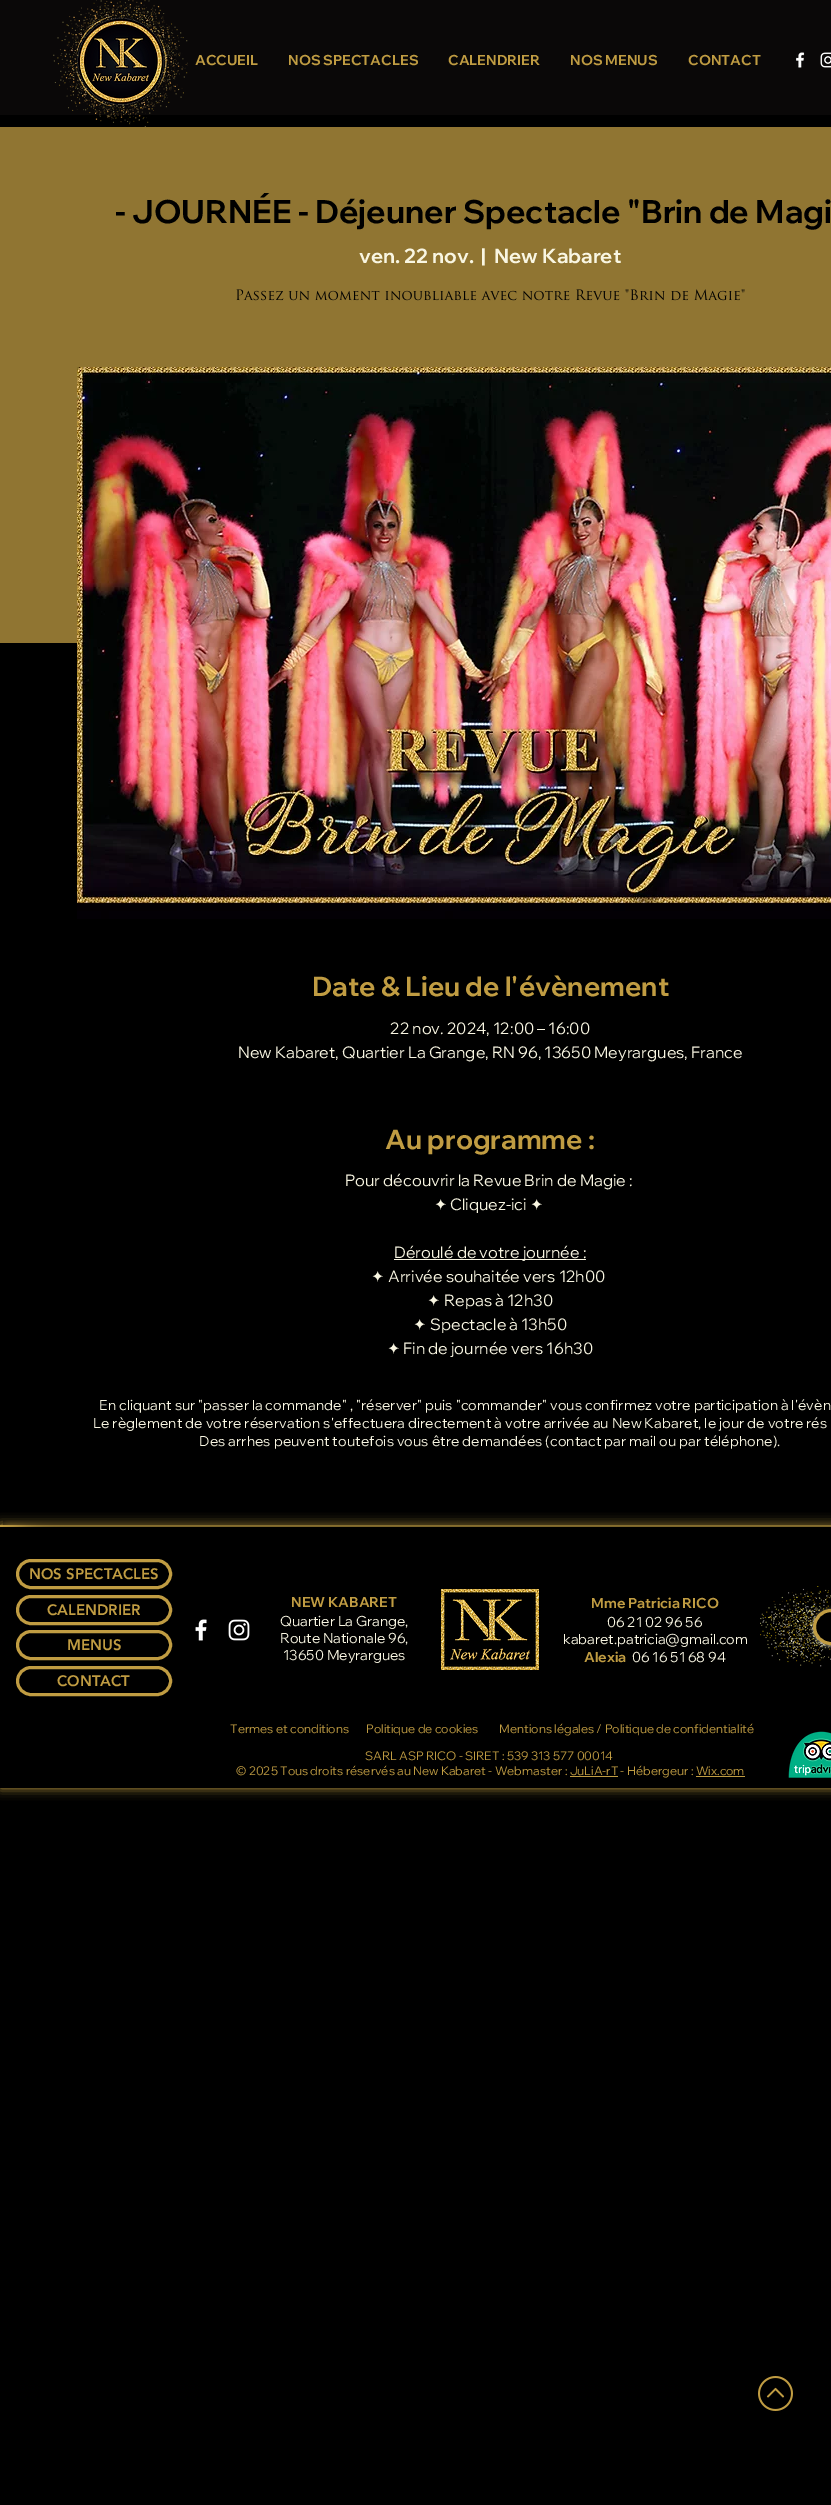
%!PS
<< /PageSize [831 2505] /PageUsesTransparency true >> setpagedevice
/m/moveto load def
/l/rlineto load def
/z/closepath load def
/f/fill load def
/s/stroke load def
/q/gsave load def
/Q_/grestore load def
/w/setlinewidth load def
/C { dup -16 bitshift 255 div exch dup -8 bitshift 255 and 255 div exch 255 and 255 div setrgbcolor } def
/F { [ exch dup neg 0 0 3 -1 roll 0 0 ] selectfont } def
/T { moveto show } def
/R { rectfill } def
/A { dup .setfillconstantalpha .setstrokeconstantalpha } def
/Q { 5 dict begin { /r /h /w /y /x } { exch def } forall
  x r add y moveto x w add y 2 copy h add r arct x w add y h add x 1 index r arct
  x y h add x y r arct x y 2 copy exch w add exch r arct closepath end } def
/S { 12 dict begin { /a /b /q /h /w /y /x } { exch def } forall gsave /was 0 def
  9 -2 -9 { dup b mul 4 div /e exch def 1 sub .425 mul 2.718 exch exp 1 add a .99 .min exch div /now exch def
    1 1 now sub 1 was sub div sub A /was now def
    w h .min e 2 mul add 0 gt { x e sub y e sub w e 2 mul add h e 2 mul add
      q e add b .6 mul add w h .min 2 div e add .min 0 .max Q fill } if } for grestore end } def
/I { 5 dict begin { /h /w /y /x /name } { exch def } forall
  gsave x y translate w h scale
  w h 8 [w 0 0 h 0 0] name (r) file false 3 colorimage grestore end } def
0 .pushpdf14devicefilter
0 2505 translate 1 -1 scale
4 setmiterlimit
16#000000 C
0 0 831 2505 R
16#0A0808 C
0 0 831 115 R
(1.rgb) 53 0 135 127 I
/WixMadeforDisplay-Bold 14 F
16#C09C42 C
(ACCUEIL) 195 65 T
(NOS SPECTACLES) 288 65 T
(CALENDRIER) 448 65 T
(NOS MENUS) 570 65 T
(CONTACT) 688 65 T
(2.rgb) 796 52 9 16 I
(3.rgb) 820 52 11 16 I
16#907532 C
0 127 831 516 R
/WixMadeforDisplay-Bold 32 F
16#000000 C
(- JOURNÉE - Déjeuner Spectacle "Brin de Magi) 115 223 T
/WixMadeforDisplay-Bold 20 F
16#F9F6E2 C
(ven. 22 nov.) 359 263 T
(|) 481 263 T
(New Kabaret) 494 263 T
(4.rgb) 236 289 509 12 I
(5.rgb) 77 367 754 552 I
/WixMadeforDisplay-Bold 27 F
16#C09C42 C
(Date & Lieu de l'évènement) 312 996 T
/WixMadeforDisplay-Regular 16 F
16#F9F6E2 C
(22 nov. 2024, 12:00 – 16:00) 390 1034 T
(New Kabaret, Quartier La Grange, RN 96, 13650 Meyrargues, France) 238 1058 T
/WixMadeforDisplay-Bold 27 F
16#C09C42 C
(Au programme :) 385 1149 T
/WixMadeforDisplay-Regular 16 F
16#F9F6E2 C
(Pour découvrir la Revue Brin de Magie :) 345 1186 T
/DejaVuSans-Regular 16 F
(✦) 434 1210 T
/WixMadeforDisplay-Regular 16 F
(Cliquez-ici) 450 1210 T
/DejaVuSans-Regular 16 F
(✦) 530 1210 T
394 1259 192 1 R
/WixMadeforDisplay-Regular 16 F
(Déroulé de votre journée :) 394 1258 T
/DejaVuSans-Regular 16 F
(✦) 371 1282 T
/WixMadeforDisplay-Regular 16 F
(Arrivée souhaitée vers 12h00) 388 1282 T
/DejaVuSans-Regular 16 F
(✦) 427 1306 T
/WixMadeforDisplay-Regular 16 F
(Repas à 12h30) 444 1306 T
/DejaVuSans-Regular 16 F
(✦) 413 1330 T
/WixMadeforDisplay-Regular 16 F
(Spectacle à 13h50) 430 1330 T
/DejaVuSans-Regular 16 F
(✦) 387 1354 T
/WixMadeforDisplay-Regular 16 F
(Fin de journée vers 16h30) 403 1354 T
/WixMadeforDisplay-Regular 14 F
99 1410 m .14 0 (En cliquant sur "passer la commande" , "réserver" puis "commander" vous confirmez votre participation à l'évèn) ashow
93 1428 m .14 0 (Le règlement de votre réservation s'effectuera directement à votre arrivée au New Kabaret, le jour de votre rés) ashow
199 1446 m .14 0 (Des arrhes peuvent toutefois vous être demandées \(contact par mail ou par téléphone\).) ashow
q
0 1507 m 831 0 l 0 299 l -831 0 l z 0 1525 m 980 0 l 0 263 l -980 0 l z eoclip newpath
16#C09C42 C
0 1525 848 263 0 5.5 1 S
Q_
16#C09C42 C
0 1525 831 2 R
(6.rgb) 3 1520 97 7 I
(7.rgb) 100 1520 731 7 I
3 w
17.5 1560.5 153 27 13.5 Q s
/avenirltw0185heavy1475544-Black 15 F
(NOS SPECTACLES) 29 1579 T
17.5 1596.5 153 27 13.5 Q s
(CALENDRIER) 47 1615 T
/WixMadeforDisplay-Bold 14 F
(NEW KABARET) 291 1607 T
/WixMadeforDisplay-Regular 14 F
16#F9F6E2 C
(Quartier La Grange,) 280 1626 T
(Route Nationale 96,) 280 1643 T
(13650 Meyrargues) 283 1660 T
(8.rgb) 441 1589 98 81 I
/WixMadeforDisplay-Bold 14 F
16#C09C42 C
(Mme Patricia RICO) 591 1608 T
/WixMadeforDisplay-Regular 14 F
16#F9F6E2 C
(06 21 02 96 56) 607 1627 T
(kabaret.patricia@gmail.com) 563 1644 T
/WixMadeforDisplay-Bold 14 F
16#C09C42 C
(Alexia) 584 1662 T
/WixMadeforDisplay-Regular 14 F
16#F9F6E2 C
(06 16 51 68 94) 632 1662 T
(9.rgb) 760 1586 71 81 I
813 1610 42 36 18 2 .6 S
16#000000 C
814.5 1610.5 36 33 16.5 Q q f Q_
16#C09C42 C
s
(10.rgb) 195 1619 12 22 I
(11.rgb) 228 1619 22 22 I
17.5 1631.5 153 27 13.5 Q s
/avenirltw0185heavy1475544-Black 15 F
(MENUS) 67 1650 T
17.5 1667.5 153 27 13.5 Q s
(CONTACT) 57 1686 T
/WixMadeforDisplay-Regular 12 F
(Termes et conditions) 230 1733 T
(Politique de cookies) 366 1733 T
(Mentions légales / Politique de confidentialité) 499 1733 T
(12.rgb) 788 1731 43 47 I
(SARL ASP RICO - SIRET : 539 313 577 00014) 365 1760 T
(© 2025 Tous droits réservés au New Kabaret - Webmaster : JuLiA-rT - Hébergeur : Wix.com) 236 1775 T
570 1776 48 1 R
696 1776 49 1 R
(13.rgb) 758 2376 35 35 I
.poppdf14devicefilter showpage
